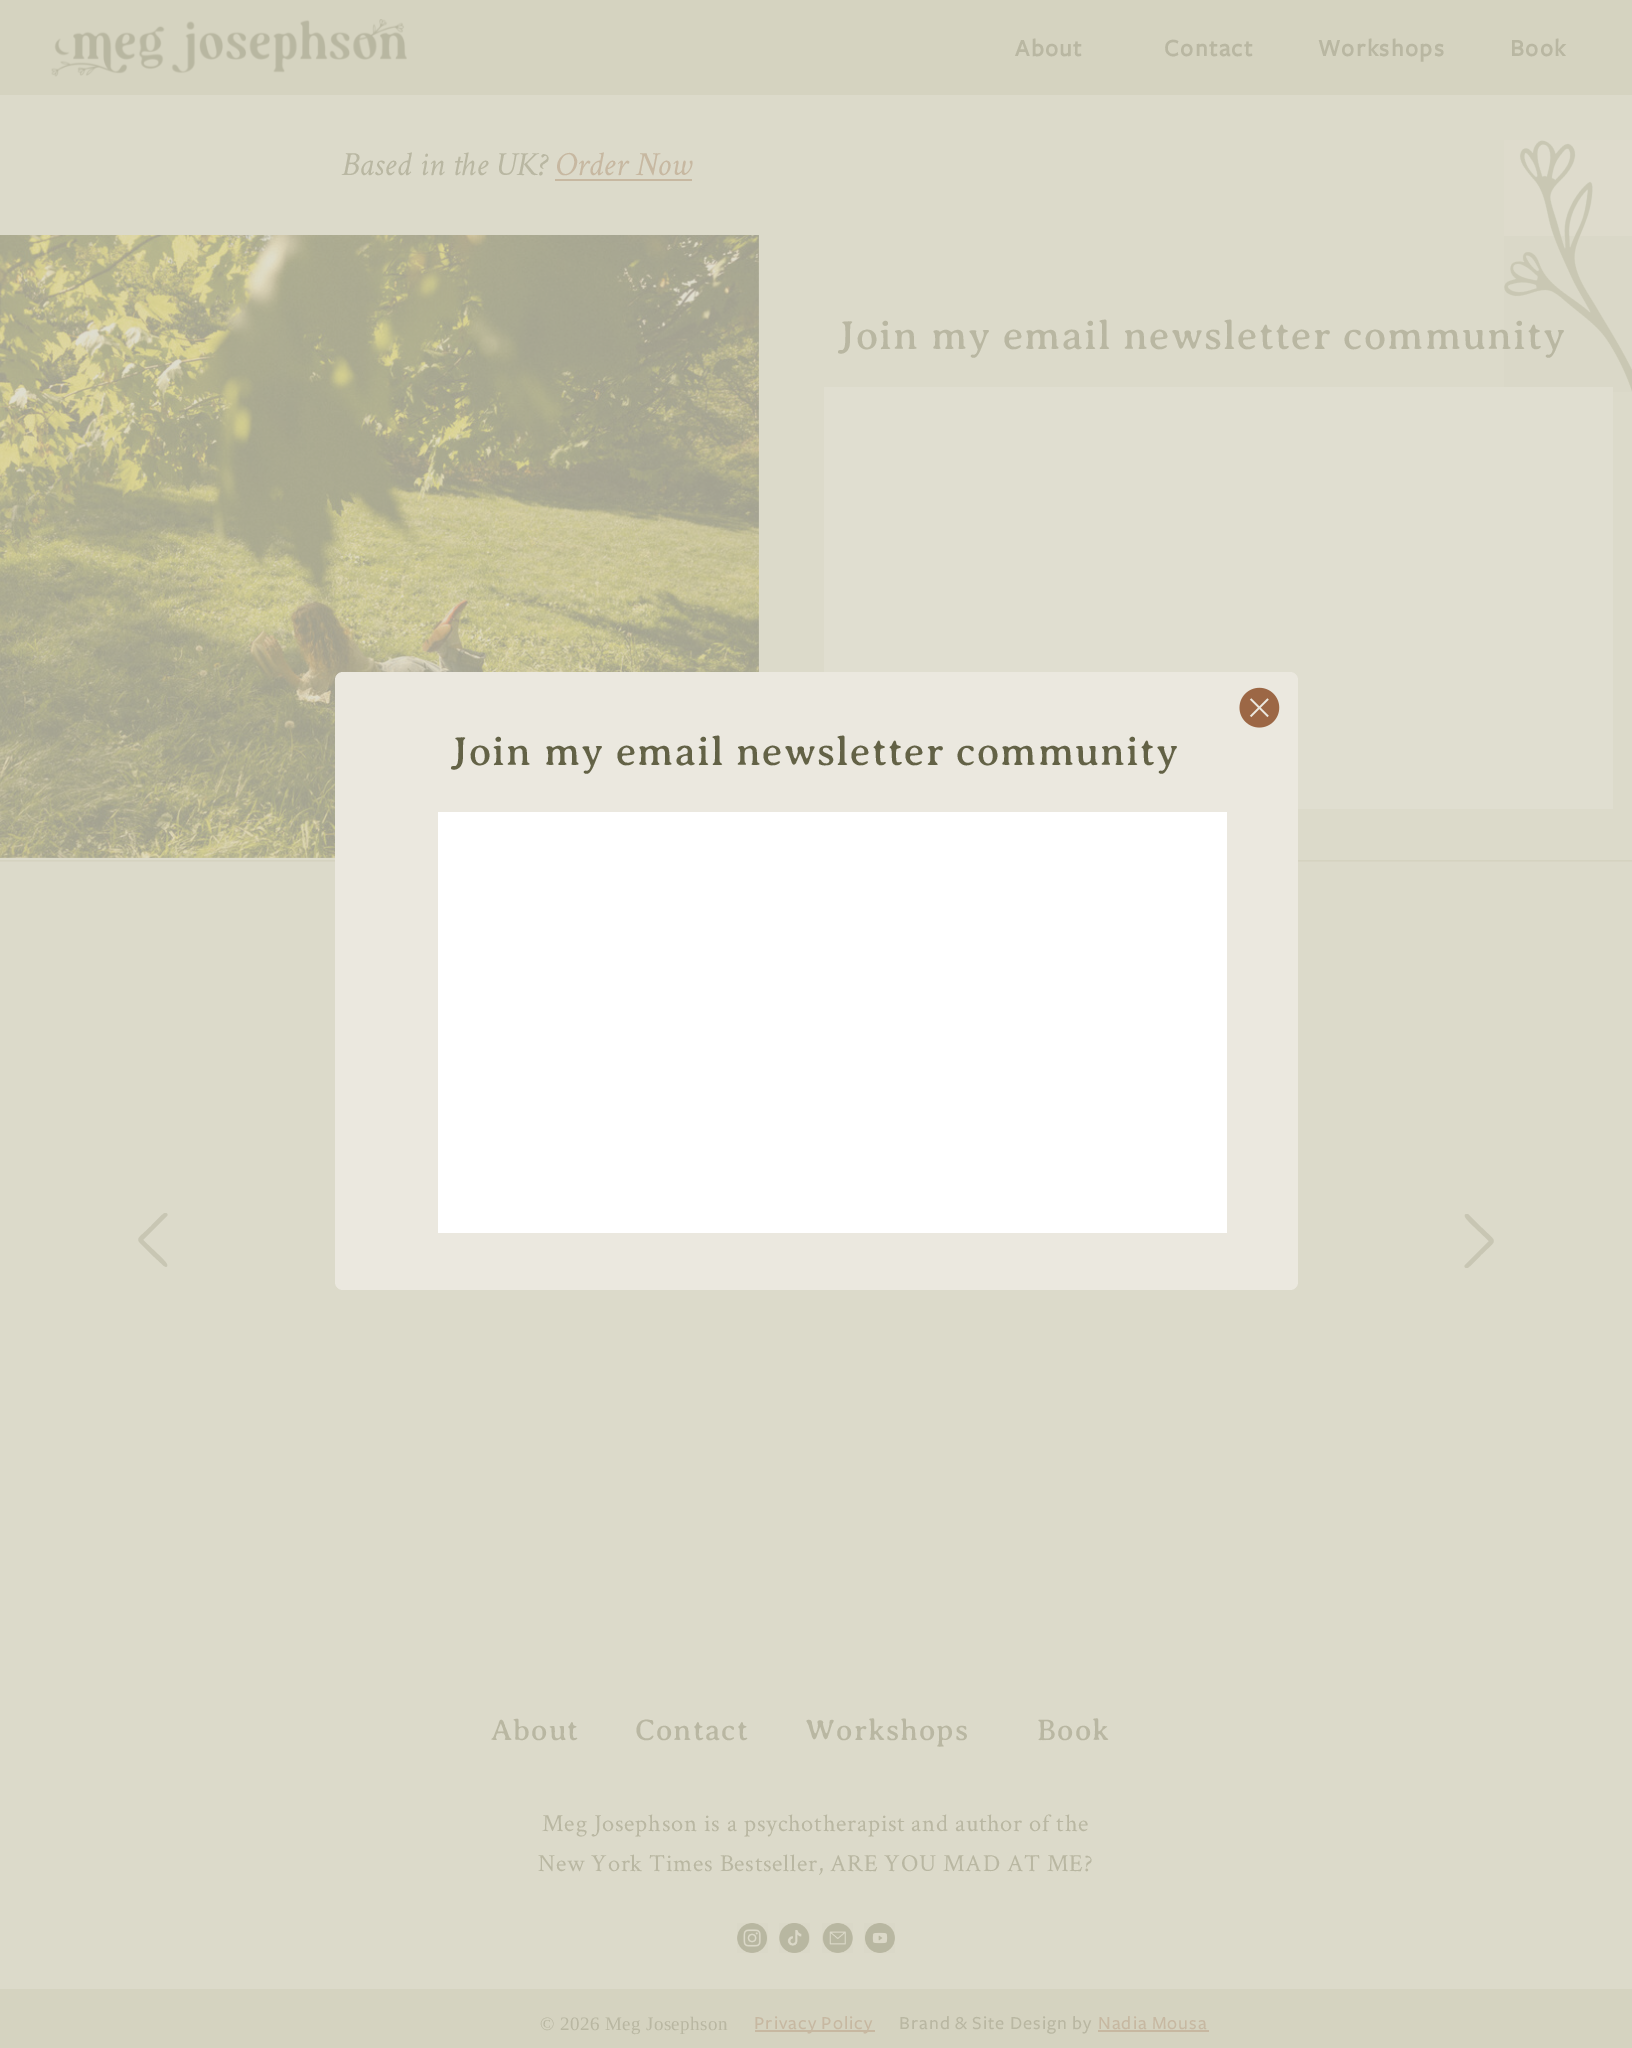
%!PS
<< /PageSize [1632 2048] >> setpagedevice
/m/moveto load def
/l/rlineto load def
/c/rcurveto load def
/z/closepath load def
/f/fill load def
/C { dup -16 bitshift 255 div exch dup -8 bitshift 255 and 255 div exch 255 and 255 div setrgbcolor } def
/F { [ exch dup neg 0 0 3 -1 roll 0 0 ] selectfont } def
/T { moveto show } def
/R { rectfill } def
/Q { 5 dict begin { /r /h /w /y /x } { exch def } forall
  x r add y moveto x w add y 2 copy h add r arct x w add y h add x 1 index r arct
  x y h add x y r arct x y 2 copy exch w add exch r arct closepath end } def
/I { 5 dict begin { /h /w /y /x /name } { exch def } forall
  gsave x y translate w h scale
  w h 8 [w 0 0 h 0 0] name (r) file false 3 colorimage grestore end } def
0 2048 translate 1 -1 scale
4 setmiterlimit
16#DCDACA C
0 0 1632 2048 R
16#D5D3C0 C
0 0 1632 95 R
(1.rgb) 51 19 356 58 I
/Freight-Bold 24.5 F
16#B9B7A2 C
1015 56 m 1.5 0 (About) ashow
1164 56 m 1.5 0 (Contact) ashow
1318 56 m 1.5 0 (Workshops) ashow
1510 56 m 1.5 0 (Book) ashow
/CrimsonText-Italic 34 F
(Based in the UK?) 341 175 T
16#C7B8A1 C
(Order Now) 555 175 T
555 179 137 2 R
(2.rgb) 0 235 759 623 I
(3.rgb) 1504 140 128 252 I
/AveriaSerifLibre-Regular 40.75 F
16#B9B7A2 C
838 349 m 1.2 0 (Join my email newsletter community) ashow
16#E0DED0 C
824 387 789 422 R
16#D5D3C0 C
0 860 1632 1 R
16#D8D5C4 C
0 861 1632 1 R
16#EBE8DF C
335 672 963 618 8 Q f
(4.rgb) 1239 687 41 41 I
16#636246 C
451 765 m 1.2 0 (Join my email newsletter community) ashow
16#FFFFFF C
438 812 789 421 R
16#C8C6B3 C
165 1213 m 2 0 3 1 2 3 c -24 24 l 20 19 l 0 1 7 6 3 8 c -2 -1 l -13 -12 l -17 -18 -17 -11 0 -28 c 2 -2 12 -13 14 -13 c z f
1467 1268 m -2 0 -3 -1 -2 -3 c 24 -24 l -20 -19 l 0 -1 -7 -6 -3 -8 c 2 0 l 13 13 l 17 17 17 11 0 28 c -2 2 -12 13 -14 13 c z f
/AveriaSerifLibre-Regular 30 F
16#B9B7A2 C
491 1740 m 1 0 (About) ashow
635 1740 m 1 0 (Contact) ashow
805 1740 m 1 0 (Workshops) ashow
1037 1740 m 1 0 (Book) ashow
/CrimsonText-Regular 24.5 F
542 1831 m .73 0 (Meg Josephson is a psychotherapist and author of the) ashow
538 1871 m .73 0 (New York Times Bestseller, ARE YOU MAD AT ME?) ashow
(5.rgb) 737 1923 31 30 I
(6.rgb) 779 1923 31 30 I
(7.rgb) 822 1923 31 30 I
(8.rgb) 864 1923 31 30 I
16#D5D3C0 C
0 1989 1632 59 R
/LiberationSerif-Regular 19 F
16#B9B7A2 C
540 2030 m .4 0 (© 2026 Meg Josephson) ashow
16#C7B8A1 C
755 2030 120 2 R
/Freight-Medium 19 F
754 2029 m 1.1 0 (Privacy Policy) ashow
16#B9B7A2 C
899 2029 m 1.1 0 (Brand & Site Design by) ashow
16#C7B8A1 C
1098 2029 m 1.1 0 (Nadia Mousa) ashow
1098 2030 111 2 R
showpage
